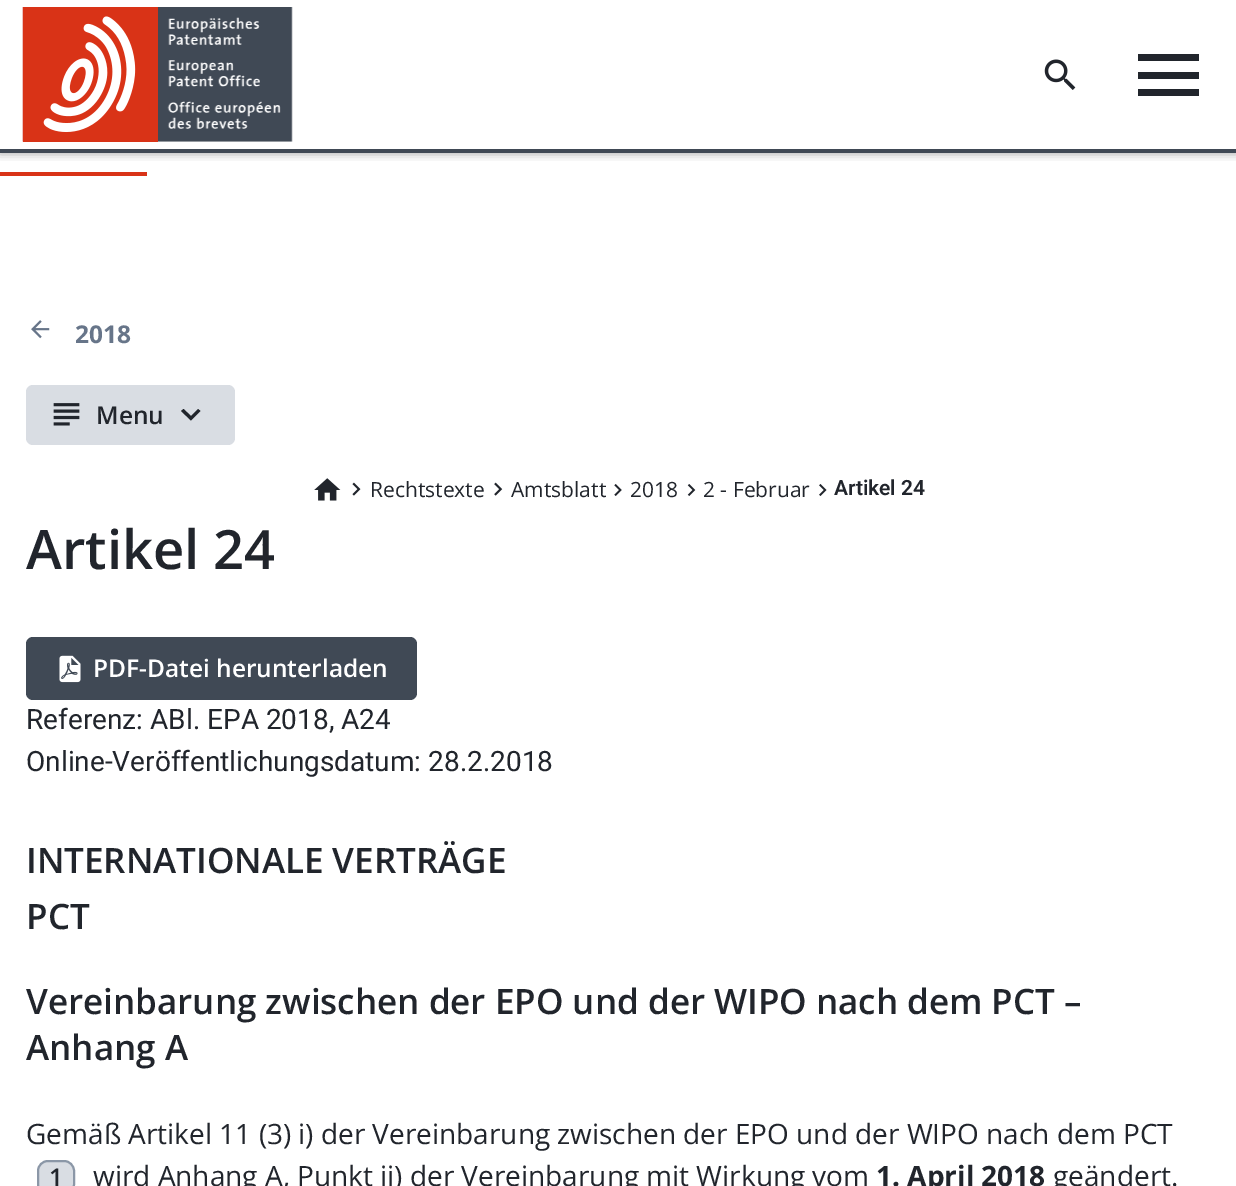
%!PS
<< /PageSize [1236 1186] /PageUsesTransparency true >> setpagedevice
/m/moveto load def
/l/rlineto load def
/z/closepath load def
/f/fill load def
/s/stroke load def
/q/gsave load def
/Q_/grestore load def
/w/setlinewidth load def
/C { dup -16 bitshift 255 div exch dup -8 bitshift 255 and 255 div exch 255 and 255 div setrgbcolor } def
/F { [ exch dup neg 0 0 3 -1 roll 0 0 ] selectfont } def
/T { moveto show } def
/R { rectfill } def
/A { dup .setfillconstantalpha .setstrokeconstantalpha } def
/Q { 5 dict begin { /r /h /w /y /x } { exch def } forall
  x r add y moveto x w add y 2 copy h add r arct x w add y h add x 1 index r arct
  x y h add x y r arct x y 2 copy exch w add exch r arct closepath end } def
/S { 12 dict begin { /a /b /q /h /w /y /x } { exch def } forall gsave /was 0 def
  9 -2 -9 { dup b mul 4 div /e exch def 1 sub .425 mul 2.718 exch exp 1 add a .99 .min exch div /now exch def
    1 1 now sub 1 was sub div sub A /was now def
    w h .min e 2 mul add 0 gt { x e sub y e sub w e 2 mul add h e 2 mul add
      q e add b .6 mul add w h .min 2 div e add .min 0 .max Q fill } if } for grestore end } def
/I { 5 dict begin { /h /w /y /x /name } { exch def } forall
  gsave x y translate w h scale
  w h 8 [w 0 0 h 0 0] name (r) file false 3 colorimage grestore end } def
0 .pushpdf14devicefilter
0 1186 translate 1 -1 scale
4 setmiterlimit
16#FFFFFF C
0 0 1236 1186 R
q
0 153 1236 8 rectclip
16#000000 C
0 0 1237 152 0 5 .5 S
Q_
16#404955 C
0 149 1236 4 R
(1.rgb) 22 7 271 135 I
(2.rgb) 23 7 135 135 I
16#D93317 C
0 172 147 4 R
(3.rgb) 1044 59 32 31 I
16#21252C C
1138 54 61 7 R
1138 72 61 7 R
1138 89 61 7 R
(4.rgb) 31 320 19 19 I
/OpenSans-Bold 24.5 F
16#677589 C
(2018) 75 343 T
16#D9DDE3 C
26 385 209 60 7 Q f
(5.rgb) 53 403 27 23 I
/OpenSans-SemiBold 24.5 F
16#21252C C
(Menu) 96 424 T
183.5 409 m 7.5 7 l 7 -7 l 2.5 2 l -9.5 9.5 l -10 -9.5 l z f
(6.rgb) 314 478 27 23 I
(7.rgb) 352 482 9 14 I
/OpenSans-Regular 21 F
(Rechtstexte) 370 497 T
(8.rgb) 494 482 9 14 I
(Amtsblatt) 511 497 T
(9.rgb) 614 484 8 12 I
(2018) 630 497 T
(10.rgb) 687 484 9 12 I
(2 - Februar) 703 497 T
(11.rgb) 819 484 8 12 I
/Roboto-SemiBold 21 F
(Artikel 24) 834 495 T
/OpenSans-SemiBold 54.25 F
(Artikel 24) 26 569 T
16#404955 C
26 637 391 63 7 Q f
(12.rgb) 59 655 22 28 I
/OpenSans-SemiBold 24.5 F
16#FFFFFF C
(PDF-Datei herunterladen) 93 677 T
/Roboto-Regular 28 F
16#21252C C
(Referenz: ABl. EPA 2018, A24) 26 729 T
(Online-Veröffentlichungsdatum: 28.2.2018) 26 771 T
/OpenSans-SemiBold 35 F
(INTERNATIONALE VERTRÄGE) 26 873 T
(PCT) 26 929 T
(Vereinbarung zwischen der EPO und der WIPO nach dem PCT –) 26 1014 T
(Anhang A) 26 1060 T
/OpenSans-Regular 28 F
(Gemäß Artikel 11 \(3\) i\) der Vereinbarung zwischen der EPO und der WIPO nach dem PCT) 26 1144 T
16#D9DDE3 C
38 1161 36 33 10 Q q f Q_
16#8B97A7 C
2 w
s
/OpenSans-SemiBold 24.5 F
16#21252C C
(1) 49 1186 T
/OpenSans-Regular 28 F
(wird Anhang A, Punkt ii\) der Vereinbarung mit Wirkung vom) 93 1186 T
/OpenSans-Bold 28 F
(1. April 2018) 876 1186 T
/OpenSans-Regular 28 F
(geändert.) 1053 1186 T
.poppdf14devicefilter showpage
